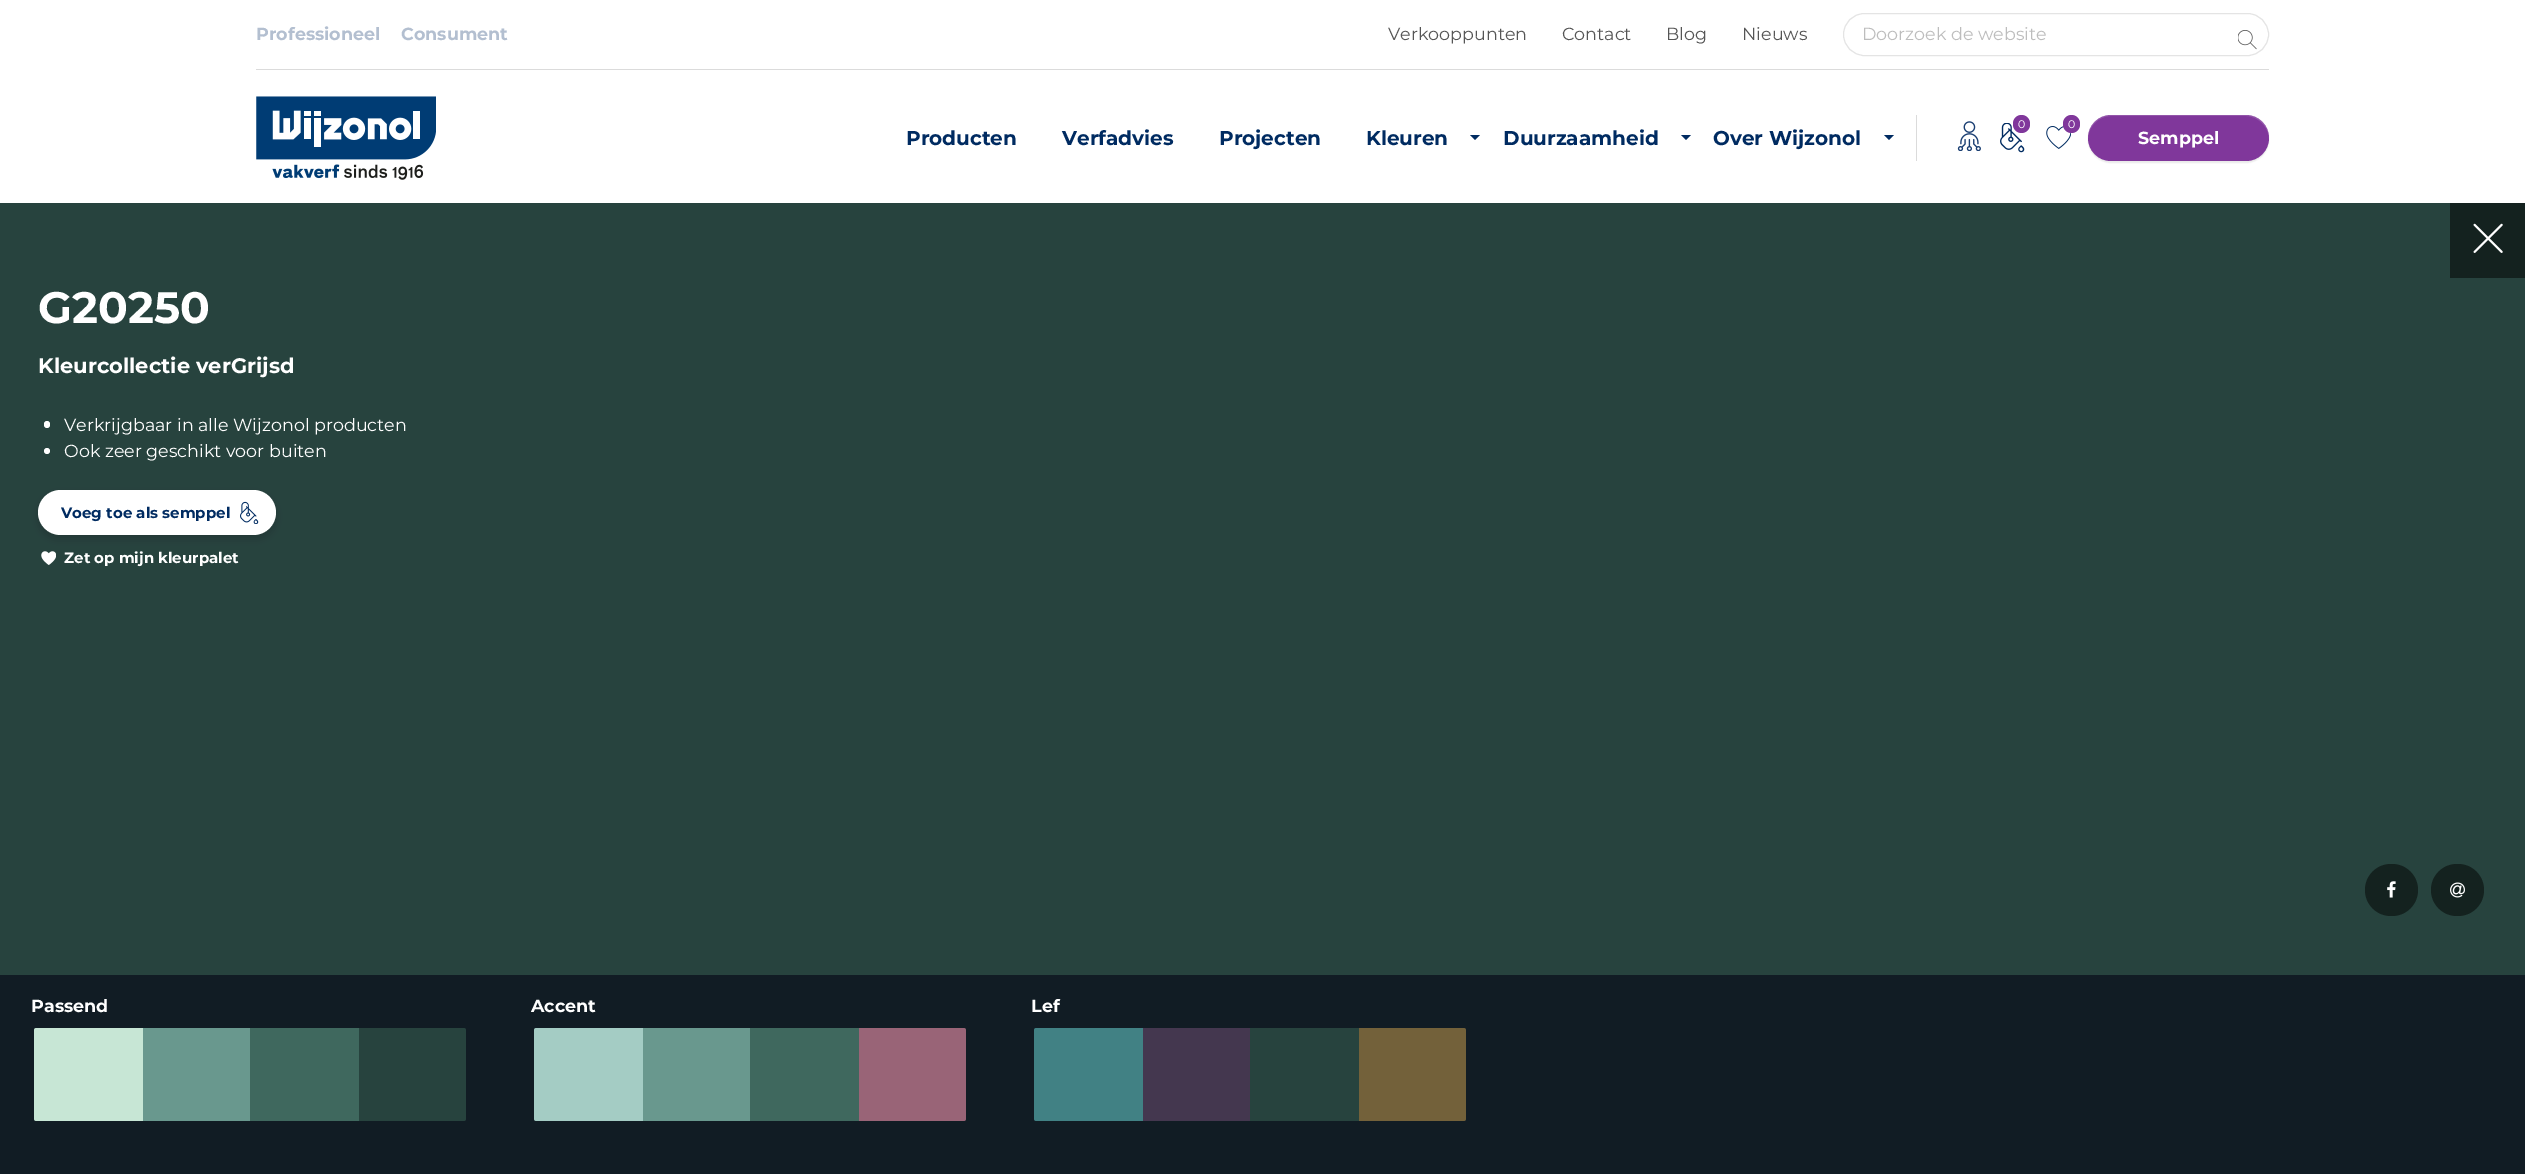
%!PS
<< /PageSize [2525 1174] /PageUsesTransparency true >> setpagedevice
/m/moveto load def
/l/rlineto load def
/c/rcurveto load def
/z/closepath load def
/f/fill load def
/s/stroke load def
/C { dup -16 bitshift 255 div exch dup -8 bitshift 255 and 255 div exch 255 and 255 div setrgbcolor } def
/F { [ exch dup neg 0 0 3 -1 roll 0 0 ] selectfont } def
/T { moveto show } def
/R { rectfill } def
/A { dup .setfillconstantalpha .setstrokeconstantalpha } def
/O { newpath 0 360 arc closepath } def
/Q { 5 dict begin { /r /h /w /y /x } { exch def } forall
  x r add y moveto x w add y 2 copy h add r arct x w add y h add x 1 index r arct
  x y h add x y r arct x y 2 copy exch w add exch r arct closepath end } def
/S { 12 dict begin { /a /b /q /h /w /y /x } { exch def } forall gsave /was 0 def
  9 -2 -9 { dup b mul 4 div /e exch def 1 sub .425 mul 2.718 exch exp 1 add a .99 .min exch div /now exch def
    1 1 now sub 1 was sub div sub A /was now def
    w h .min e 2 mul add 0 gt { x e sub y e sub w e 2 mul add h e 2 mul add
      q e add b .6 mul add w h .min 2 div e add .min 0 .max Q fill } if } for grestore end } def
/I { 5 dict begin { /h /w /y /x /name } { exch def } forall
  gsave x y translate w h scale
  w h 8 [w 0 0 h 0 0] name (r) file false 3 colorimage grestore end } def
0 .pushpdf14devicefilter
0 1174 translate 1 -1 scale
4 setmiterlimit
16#FFFFFF C
0 0 2525 1174 R
16#DBDBDB C
256 69 2013 1 R
/Montserrat-Bold 17.5 F
16#B3BFD0 C
(Professioneel) 256 40 T
(Consument) 401 40 T
/Montserrat-Regular 17.5 F
16#555555 C
(Verkooppunten) 1388 40 T
(Contact) 1562 40 T
(Blog) 1666 40 T
(Nieuws) 1742 40 T
16#E4E4E4 C
1843.5 13.5 425 42 21 Q s
16#BDBDBD C
(Doorzoek de website) 1862 40 T
(1.rgb) 2238 30 19 20 I
(2.rgb) 256 96 180 84 I
/Montserrat-Bold 20 F
16#002B61 C
(Producten) 906 145 T
(Verfadvies) 1062 145 T
(Projecten) 1219 145 T
(Kleuren) 1366 145 T
1470 135 m 10 0 l -5 5 l z f
(Duurzaamheid) 1503 145 T
1681 135 m 10 0 l -5 5 l z f
(Over Wijzonol) 1713 145 T
1884 135 m 10 0 l -5 5 l z f
16#DBDBDB C
1916 115 1 46 R
(3.rgb) 1957 121 24 30 I
(4.rgb) 2000 123 25 30 I
16#80379B C
2013 115 17 18 8.5 Q f
/Montserrat-Regular 11 F
16#FFFFFF C
(0) 2018 128 T
(5.rgb) 2046 126 25 23 I
16#80379B C
2063 115 17 18 8.5 Q f
16#FFFFFF C
(0) 2068 128 T
16#000000 C
2088 116 181 47 23.5 .5 .07 S
16#80379B C
2088 115 181 46 23 Q f
0.15 A
16#FFFFFF C
2111 116 m 135 0 l 12 0 23 11 23 23 c 0 -1 l 0 -13 -10 -23 -23 -23 c -135 0 l -13 0 -23 10 -23 23 c 0 1 l 0 -12 10 -23 23 -23 c z f
/Montserrat-Bold 17.5 F
1 A
(Semppel) 2138 144 T
16#27433E C
0 203 2525 772 R
16#14221F C
2450 203 75 75 R
(6.rgb) 2473 223 30 30 I
/Montserrat-Bold 44 F
16#FFFFFF C
(G20250) 38 323 T
/Montserrat-Bold 21 F
(Kleurcollectie verGrijsd) 38 373 T
44 421 6 7 3 Q f
/Montserrat-Regular 17.5 F
(Verkrijgbaar in alle Wijzonol producten) 64 431 T
47 451 3 O f
(Ook zeer geschikt voor buiten) 64 457 T
16#000000 C
38 494 238 45 22.5 4 .16 S
16#FFFFFF C
38 490 238 45 22.5 Q f
/Montserrat-Bold 15 F
16#002B61 C
(Voeg toe als semppel) 61 518 T
(7.rgb) 240 501 19 23 I
(8.rgb) 41 551 15 14 I
16#FFFFFF C
(Zet op mijn kleurpalet) 64 563 T
16#14221F C
2365 864 53 52 26 Q f
(9.rgb) 2387 881 9 17 I
2431 864 53 52 26 Q f
(10.rgb) 2450 882 15 16 I
16#111C24 C
0 975 2525 199 R
/Montserrat-Bold 17.5 F
16#FFFFFF C
(Passend) 31 1012 T
16#C7E6D5 C
36.5 1028 m 106.5 0 l 0 93 l -106.5 0 l -1.5 0 -2.5 -1 -2.5 -2.5 c 0 -88 l 0 -1.5 1 -2.5 2.5 -2.5 c z f
16#69988E C
143 1028 107 93 R
16#3F685E C
250 1028 109 93 R
16#27433E C
359 1028 m 104.5 0 l 1.5 0 2.5 1 2.5 2.5 c 0 88 l 0 1.5 -1 2.5 -2.5 2.5 c -104.5 0 l z f
16#FFFFFF C
(Accent) 531 1012 T
16#A4CCC4 C
536.5 1028 m 106.5 0 l 0 93 l -106.5 0 l -1.5 0 -2.5 -1 -2.5 -2.5 c 0 -88 l 0 -1.5 1 -2.5 2.5 -2.5 c z f
16#69988E C
643 1028 107 93 R
16#3F685E C
750 1028 109 93 R
16#996477 C
859 1028 m 104.5 0 l 1.5 0 2.5 1 2.5 2.5 c 0 88 l 0 1.5 -1 2.5 -2.5 2.5 c -104.5 0 l z f
16#FFFFFF C
(Lef) 1031 1012 T
16#418184 C
1036.5 1028 m 106.5 0 l 0 93 l -106.5 0 l -1.5 0 -2.5 -1 -2.5 -2.5 c 0 -88 l 0 -1.5 1 -2.5 2.5 -2.5 c z f
16#44374F C
1143 1028 107 93 R
16#27433E C
1250 1028 109 93 R
16#73613A C
1359 1028 m 104.5 0 l 1.5 0 2.5 1 2.5 2.5 c 0 88 l 0 1.5 -1 2.5 -2.5 2.5 c -104.5 0 l z f
.poppdf14devicefilter showpage
